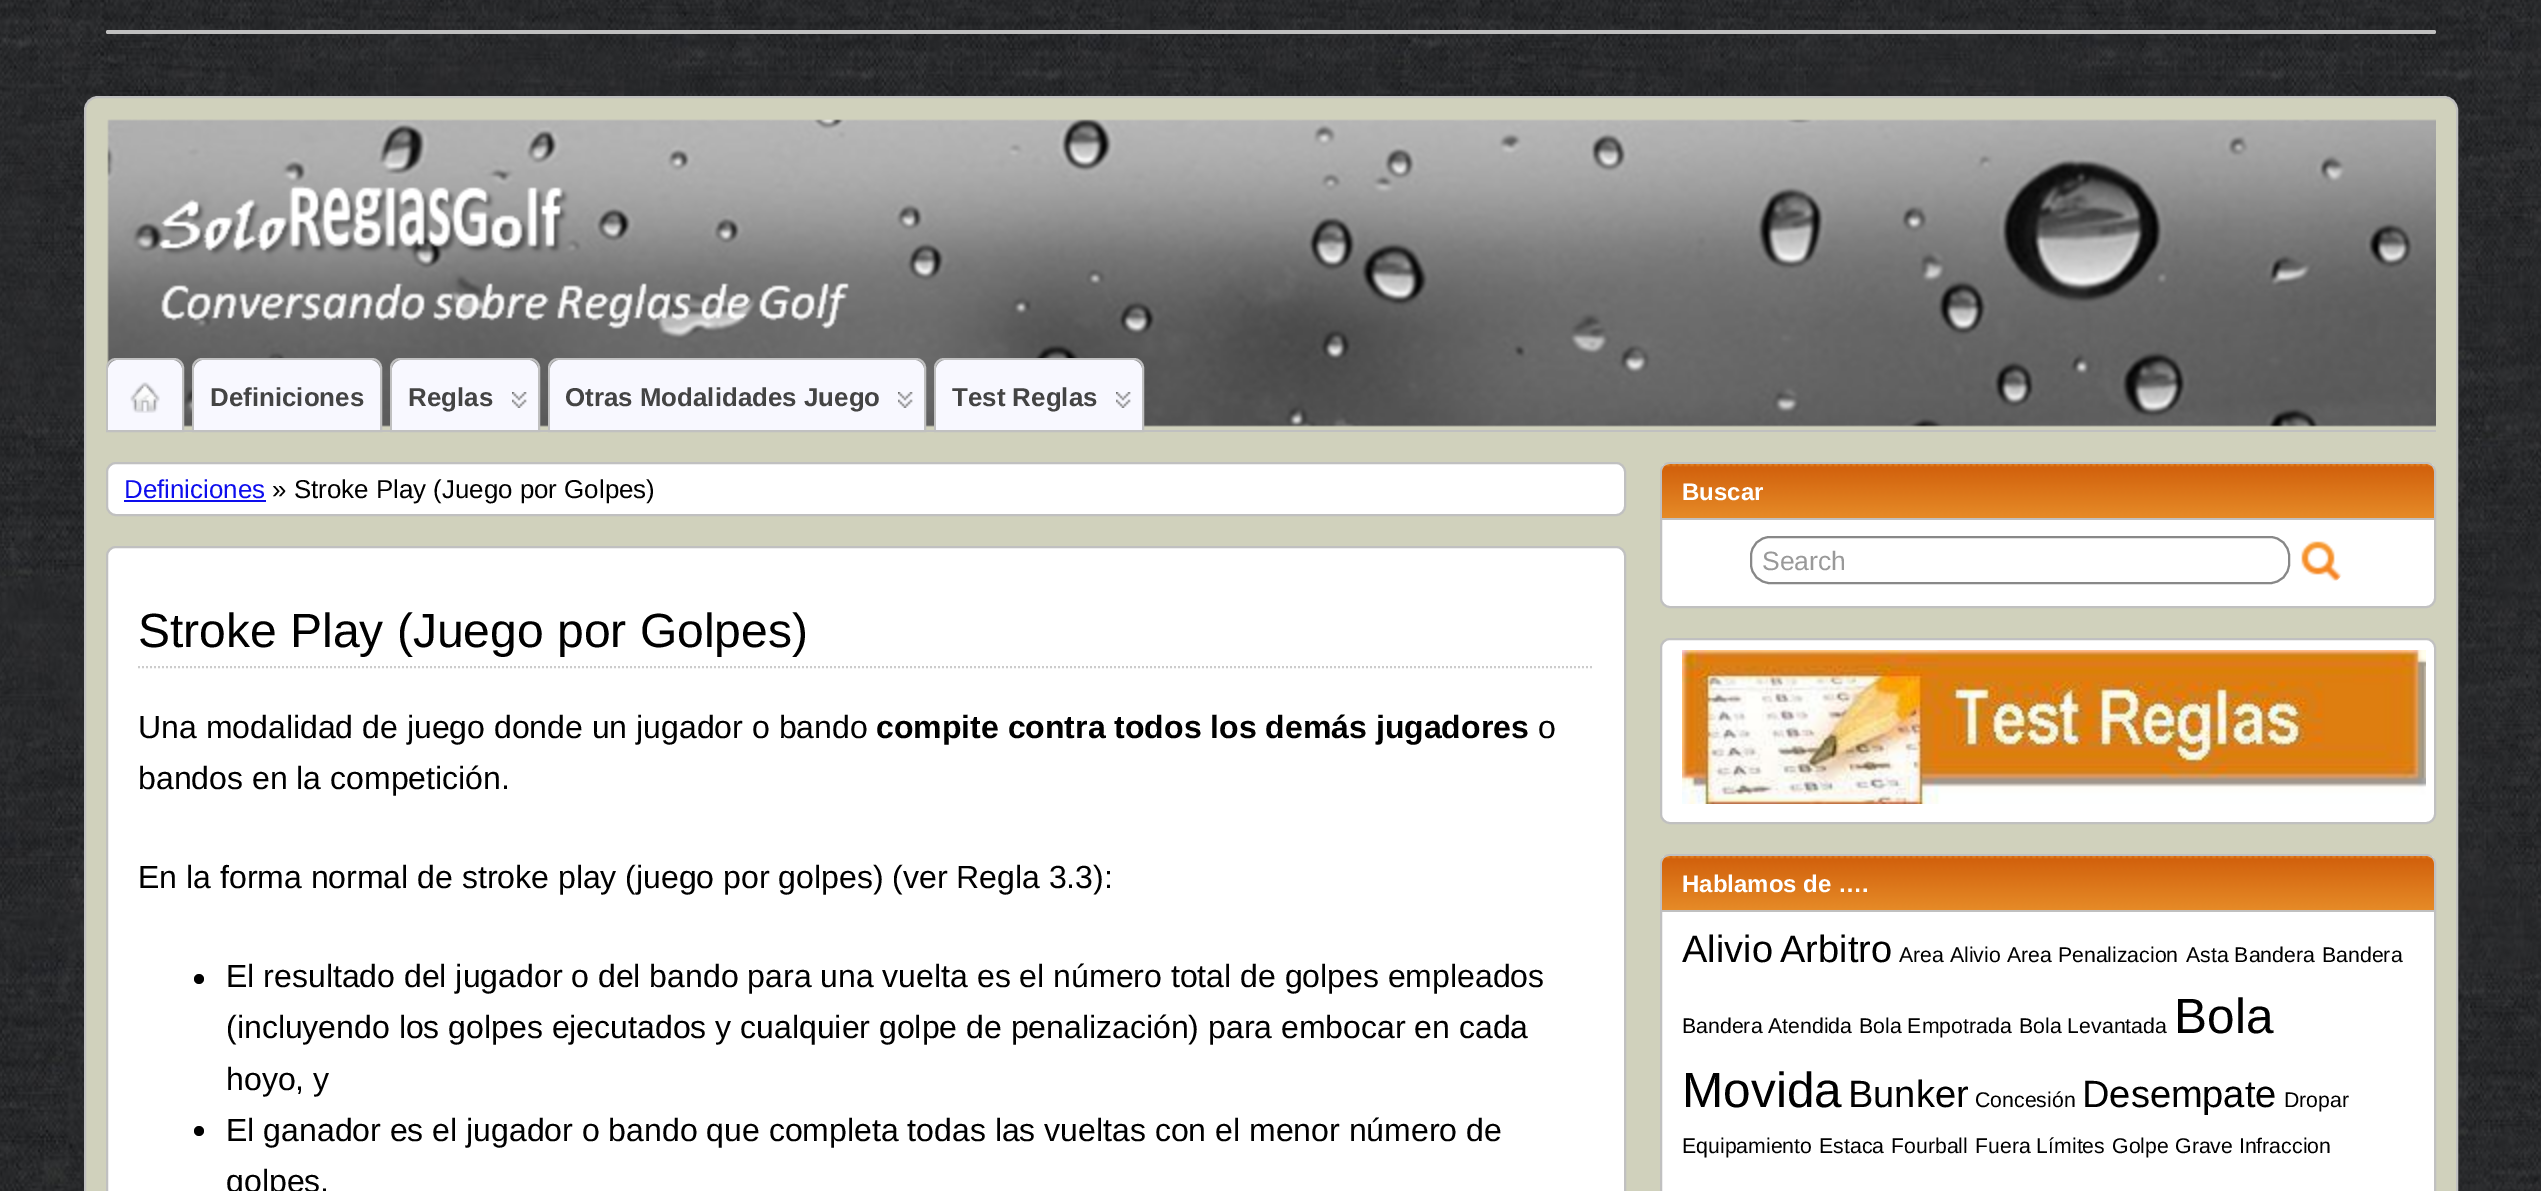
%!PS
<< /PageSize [2541 1191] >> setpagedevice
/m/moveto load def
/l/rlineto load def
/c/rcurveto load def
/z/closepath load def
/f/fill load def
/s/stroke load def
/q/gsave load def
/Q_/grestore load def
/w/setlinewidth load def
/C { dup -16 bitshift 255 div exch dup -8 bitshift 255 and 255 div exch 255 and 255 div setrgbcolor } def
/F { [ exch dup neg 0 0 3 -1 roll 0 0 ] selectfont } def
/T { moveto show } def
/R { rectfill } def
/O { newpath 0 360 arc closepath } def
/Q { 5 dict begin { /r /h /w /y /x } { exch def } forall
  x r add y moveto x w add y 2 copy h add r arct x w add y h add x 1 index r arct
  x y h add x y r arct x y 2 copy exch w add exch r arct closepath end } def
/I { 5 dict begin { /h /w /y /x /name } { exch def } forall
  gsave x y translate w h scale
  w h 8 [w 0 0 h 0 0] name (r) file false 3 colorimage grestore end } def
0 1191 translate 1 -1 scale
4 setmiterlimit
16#FFFFFF C
0 0 2541 1191 R
(1.rgb) 0 0 2541 1191 I
16#C0C0C0 C
106 30 2330 4 2 Q f
16#D0D1BC C
85 97 2372 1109 13 Q q f Q_
16#C0C0C0 C
2 w
s
(2.rgb) 107 119 2329 308 I
184 430 2252 2 R
116 359 m 58 0 l 5 0 9 4 9 9 c 0 63 l -76 0 l 0 -63 l 0 -5 4 -9 9 -9 c z s
16#F8F8FF C
118 360 m 54 0 l 5.5 0 10 4.5 10 10 c 0 60 l -74 0 l 0 -60 l 0 -5.5 4.5 -10 10 -10 c z f
(3.rgb) 130 382 30 31 I
16#C0C0C0 C
202 359 m 170 0 l 5 0 9 4 9 9 c 0 63 l -188 0 l 0 -63 l 0 -5 4 -9 9 -9 c z s
16#F8F8FF C
204 360 m 166 0 l 5.5 0 10 4.5 10 10 c 0 60 l -186 0 l 0 -60 l 0 -5.5 4.5 -10 10 -10 c z f
/LiberationSans-Bold 25.9 F
16#444444 C
(Definiciones) 210 406 T
16#C0C0C0 C
400 359 m 130 0 l 5 0 9 4 9 9 c 0 63 l -148 0 l 0 -63 l 0 -5 4 -9 9 -9 c z s
16#F8F8FF C
402 360 m 126 0 l 5.5 0 10 4.5 10 10 c 0 60 l -146 0 l 0 -60 l 0 -5.5 4.5 -10 10 -10 c z f
16#444444 C
(Reglas) 408 406 T
(4.rgb) 512 392 15 16 I
16#C0C0C0 C
558 359 m 358 0 l 5 0 9 4 9 9 c 0 63 l -376 0 l 0 -63 l 0 -5 4 -9 9 -9 c z s
16#F8F8FF C
560 360 m 354 0 l 5.5 0 10 4.5 10 10 c 0 60 l -374 0 l 0 -60 l 0 -5.5 4.5 -10 10 -10 c z f
16#444444 C
(Otras Modalidades Juego) 565 406 T
(4.rgb) 898 392 15 16 I
16#C0C0C0 C
944 359 m 190 0 l 5 0 9 4 9 9 c 0 63 l -208 0 l 0 -63 l 0 -5 4 -9 9 -9 c z s
16#F8F8FF C
946 360 m 186 0 l 5.5 0 10 4.5 10 10 c 0 60 l -206 0 l 0 -60 l 0 -5.5 4.5 -10 10 -10 c z f
16#444444 C
(Test Reglas) 952 406 T
(4.rgb) 1116 392 15 16 I
16#FFFFFF C
107 463 1518 52 9 Q q f Q_
16#C0C0C0 C
s
/LiberationSans-Regular 25.9 F
16#0D0DED C
(Definiciones) 124 498 T
124 500 142 2 R
16#000000 C
(» Stroke Play \(Juego por Golpes\)) 272 498 T
16#FFFFFF C
107 547 1518 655 9 Q q f Q_
16#C0C0C0 C
s
16#CCCCCC C
[2 2] 0 setdash
138 667 m 1456 0 l s
/LiberationSans-Regular 48 F
16#000000 C
(Stroke Play \(Juego por Golpes\)) 138 647 T
/LiberationSans-Regular 32 F
(Una modalidad de juego donde un jugador o bando) 138 738 T
/LiberationSans-Bold 32 F
(compite contra todos los demás jugadores) 876 738 T
/LiberationSans-Regular 32 F
(o) 1538 738 T
(bandos en la competición.) 138 789 T
(En la forma normal de stroke play \(juego por golpes\) \(ver Regla 3.3\):) 138 888 T
199 979 5 O f
(El resultado del jugador o del bando para una vuelta es el número total de golpes empleados) 226 987 T
(\(incluyendo los golpes ejecutados y cualquier golpe de penalización\) para embocar en cada) 226 1038 T
(hoyo, y) 226 1090 T
199 1131 5 O f
(El ganador es el jugador o bando que completa todas las vueltas con el menor número de) 226 1141 T
(golpes.) 226 1192 T
16#FFFFFF C
1661 463 774 144 9 Q q f Q_
16#C0C0C0 C
[] 0 setdash
s
16#F6AC3D C
1670 464 m 756 0 l 4.5 0 8 3.5 8 8 c 0 48 l -772 0 l 0 -48 l 0 -4.5 3.5 -8 8 -8 c z f
(5.rgb) 1662 464 772 54 I
16#C0C0C0 C
1662 518 772 2 R
/LiberationSans-Bold 24 F
16#FFFFFF C
(Buscar) 1682 500 T
16#888888 C
1751 537 538 46 19 Q s
/LiberationSans-Regular 26.5 F
16#999999 C
(Search) 1762 570 T
(6.rgb) 2301 541 41 40 I
16#FFFFFF C
1661 639 774 184 9 Q q f Q_
16#C0C0C0 C
s
(7.rgb) 1682 650 744 154 I
16#FFFFFF C
1661 855 774 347 9 Q q f Q_
16#C0C0C0 C
s
16#F6AC3D C
1670 856 m 756 0 l 4.5 0 8 3.5 8 8 c 0 48 l -772 0 l 0 -48 l 0 -4.5 3.5 -8 8 -8 c z f
(5.rgb) 1662 856 772 54 I
16#C0C0C0 C
1662 910 772 2 R
/LiberationSans-Bold 24 F
16#FFFFFF C
(Hablamos de ….) 1682 892 T
/LiberationSans-Regular 38 F
16#000000 C
(Alivio) 1682 962 T
(Arbitro) 1780 962 T
/LiberationSans-Regular 21.25 F
(Area Alivio) 1899 962 T
(Area Penalizacion) 2007 962 T
(Asta Bandera) 2186 962 T
(Bandera) 2322 962 T
(Bandera Atendida) 1682 1033 T
(Bola Empotrada) 1859 1033 T
(Bola Levantada) 2019 1033 T
/LiberationSans-Regular 49.5 F
(Bola) 2174 1033 T
(Movida) 1682 1107 T
/LiberationSans-Regular 38 F
(Bunker) 1848 1107 T
/LiberationSans-Regular 21.25 F
(Concesión) 1975 1107 T
/LiberationSans-Regular 38 F
(Desempate) 2082 1107 T
/LiberationSans-Regular 21.25 F
(Dropar) 2284 1107 T
(Equipamiento) 1682 1153 T
(Estaca) 1819 1153 T
(Fourball) 1891 1153 T
(Fuera Límites) 1975 1153 T
(Golpe) 2112 1153 T
(Grave Infraccion) 2175 1153 T
showpage
